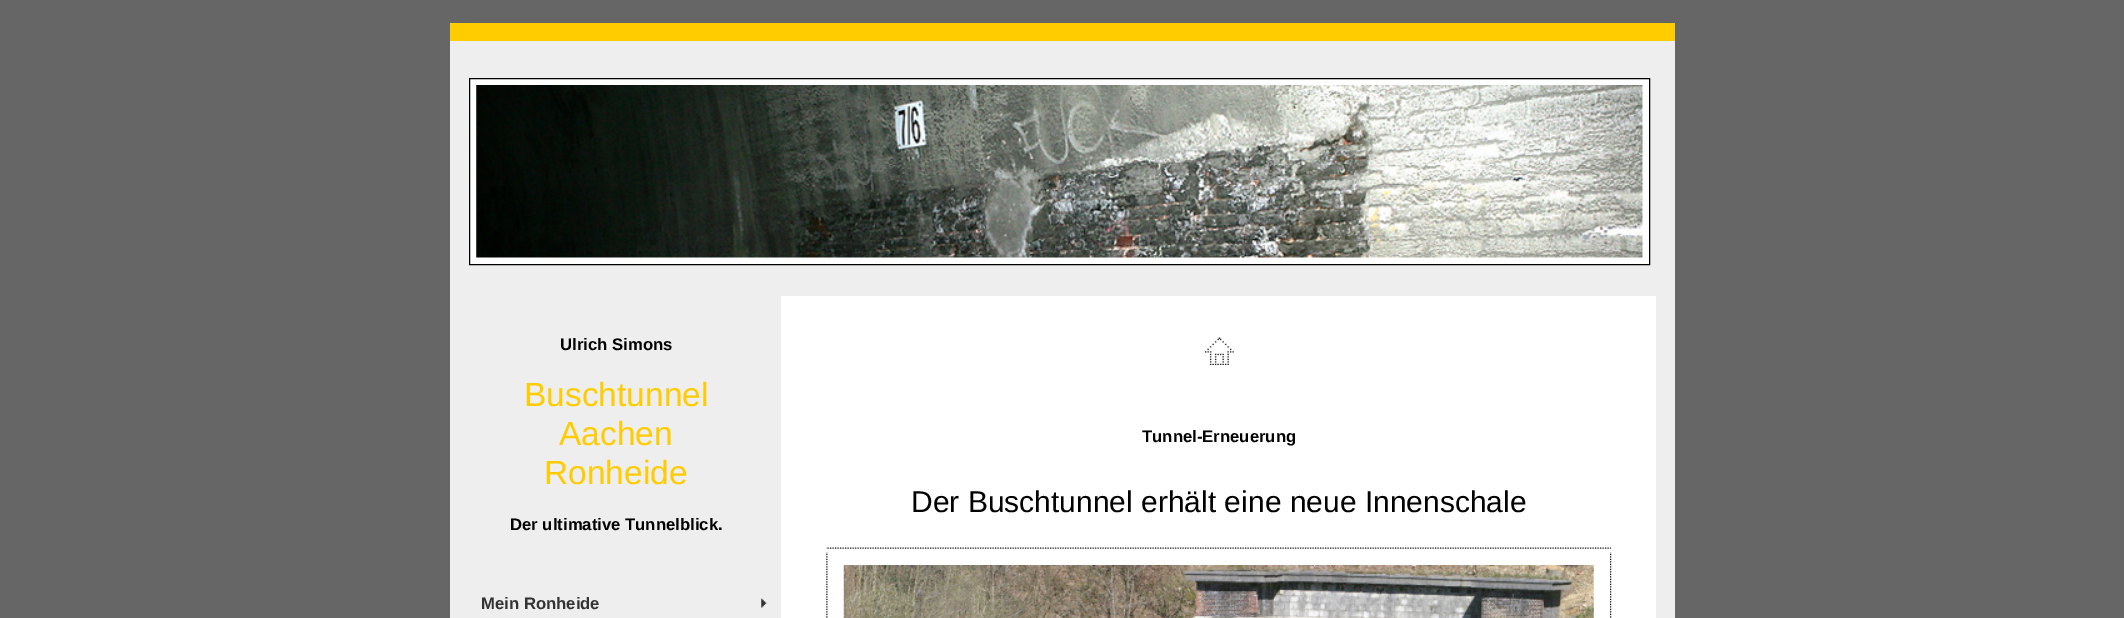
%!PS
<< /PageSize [2124 618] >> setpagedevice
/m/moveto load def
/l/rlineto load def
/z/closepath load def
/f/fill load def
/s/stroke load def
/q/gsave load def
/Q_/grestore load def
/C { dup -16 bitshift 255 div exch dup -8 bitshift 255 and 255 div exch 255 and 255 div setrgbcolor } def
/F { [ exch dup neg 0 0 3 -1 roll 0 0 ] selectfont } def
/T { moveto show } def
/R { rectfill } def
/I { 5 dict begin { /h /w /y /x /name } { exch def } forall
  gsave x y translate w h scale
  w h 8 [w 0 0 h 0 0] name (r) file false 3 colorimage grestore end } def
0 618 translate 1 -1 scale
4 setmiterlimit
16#666666 C
0 0 2124 618 R
16#EEEEEE C
450 41 1225 577 R
16#FFCC00 C
450 23 1225 18 R
16#FFFFFF C
469.5 78.5 m 1180 0 l 0 186 l -1180 0 l z q f Q_
16#000000 C
s
(1.rgb) 476 85 1167 173 I
/LiberationSans-Bold 16.7 F
(Ulrich Simons) 560 350 T
/LiberationSans-Regular 33.5 F
16#FFCC00 C
(Buschtunnel) 524 406 T
(Aachen) 559 445 T
(Ronheide) 544 484 T
/LiberationSans-Bold 16.7 F
16#000000 C
(Der ultimative Tunnelblick.) 510 530 T
(2.rgb) 761 598 6 10 I
16#333333 C
(Mein Ronheide) 481 609 T
16#FFFFFF C
781 296 875 322 R
(3.rgb) 1205 337 29 28 I
16#000000 C
(Tunnel-Erneuerung) 1142 442 T
/LiberationSans-Regular 30 F
(Der Buschtunnel erhält eine neue Innenschale) 911 512 T
(4.rgb) 826 547 786 2 I
(5.rgb) 826 552 2 66 I
(6.rgb) 843 565 751 53 I
(7.rgb) 1610 552 2 66 I
showpage
